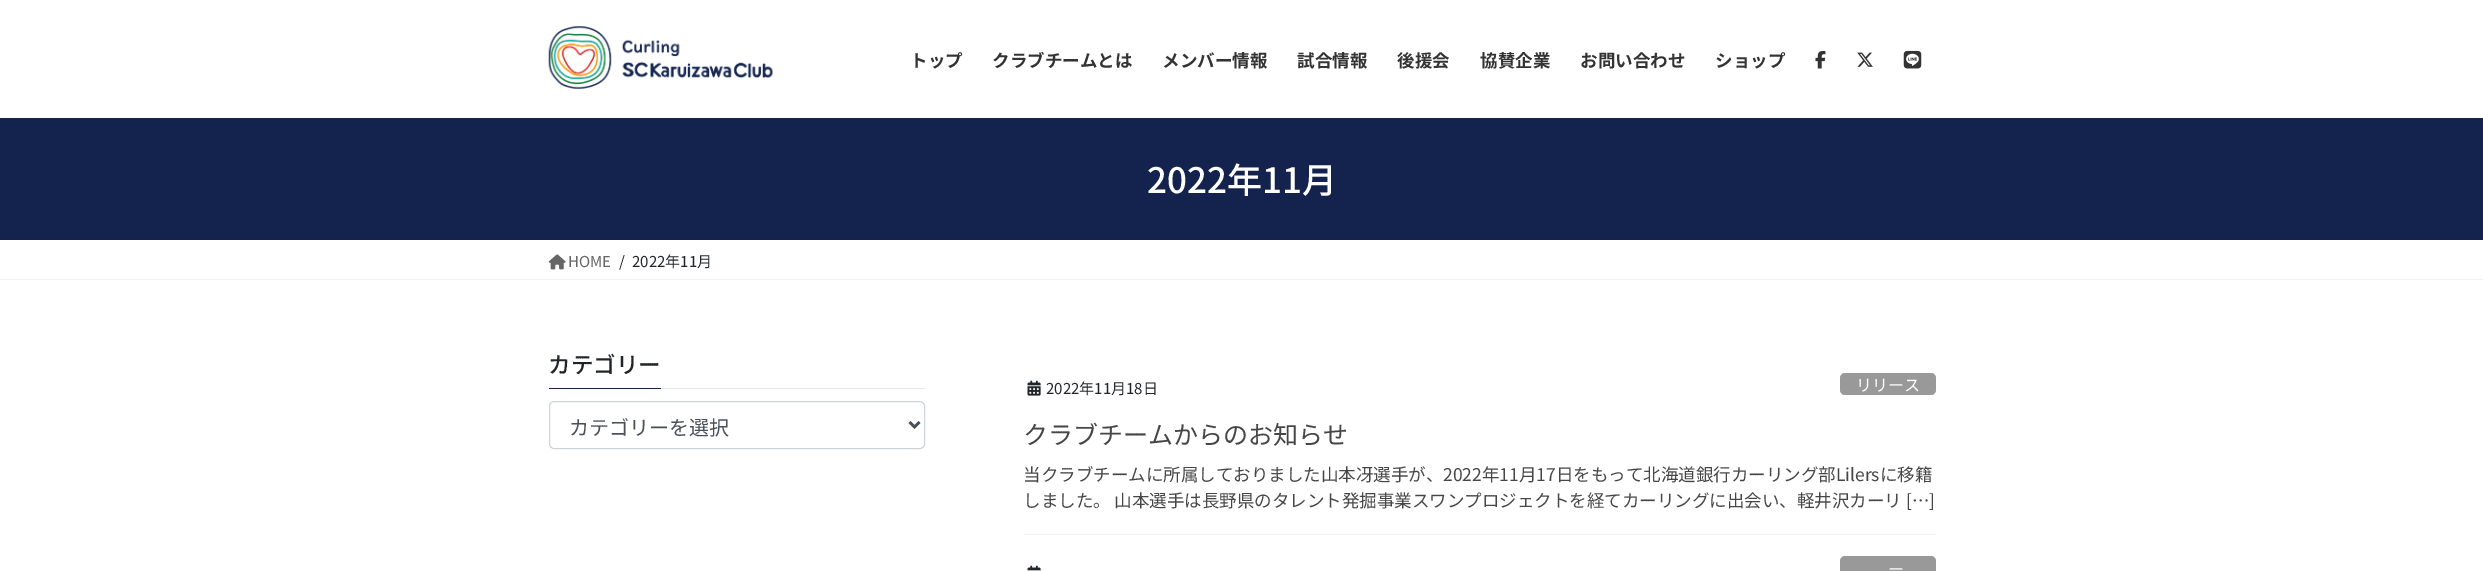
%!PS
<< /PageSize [2483 571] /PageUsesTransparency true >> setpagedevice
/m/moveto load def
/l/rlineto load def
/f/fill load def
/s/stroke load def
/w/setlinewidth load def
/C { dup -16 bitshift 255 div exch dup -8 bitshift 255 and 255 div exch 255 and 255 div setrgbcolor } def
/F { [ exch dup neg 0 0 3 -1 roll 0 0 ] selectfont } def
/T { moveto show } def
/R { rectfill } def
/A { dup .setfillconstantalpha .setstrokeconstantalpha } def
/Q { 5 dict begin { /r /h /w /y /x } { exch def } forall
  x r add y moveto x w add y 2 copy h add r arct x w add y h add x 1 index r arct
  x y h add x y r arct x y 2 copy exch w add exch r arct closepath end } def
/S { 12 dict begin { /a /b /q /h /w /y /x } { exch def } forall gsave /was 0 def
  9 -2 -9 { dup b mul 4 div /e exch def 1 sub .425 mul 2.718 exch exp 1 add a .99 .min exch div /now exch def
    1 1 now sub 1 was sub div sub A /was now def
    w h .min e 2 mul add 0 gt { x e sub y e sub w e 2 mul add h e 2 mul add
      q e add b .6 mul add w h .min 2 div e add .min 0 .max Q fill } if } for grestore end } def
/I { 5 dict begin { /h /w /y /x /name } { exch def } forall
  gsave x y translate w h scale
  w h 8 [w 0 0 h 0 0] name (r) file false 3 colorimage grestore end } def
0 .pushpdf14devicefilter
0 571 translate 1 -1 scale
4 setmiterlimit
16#FFFFFF C
0 0 2483 571 R
16#14234D C
0 118 2483 122 R
16#000000 C
0 1 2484 118 0 2 .1 S
16#FFFFFF C
0 0 2483 118 R
(1.rgb) 548 26 225 63 I
/NotoSansJP-Bold 17.5 F
16#333333 C
(トップ) 910 67 T
(クラブチームとは) 992 67 T
(メンバー情報) 1162 67 T
(試合情報) 1297 67 T
(後援会) 1397 67 T
(協賛企業) 1480 67 T
(お問い合わせ) 1580 67 T
(ショップ) 1715 67 T
(2.rgb) 1815 50 11 19 I
(3.rgb) 1857 52 16 15 I
(4.rgb) 1903 50 19 19 I
/NotoSansJP-Medium 35 F
16#FFFFFF C
(2022年11月) 1147 193 T
16#F2F2F2 C
0 279 2483 1 R
(5.rgb) 548 254 18 16 I
/NotoSansJP-Regular 15 F
16#666666 C
(HOME) 568 267 T
16#212529 C
(/) 619 267 T
(2022年11月) 632 267 T
16#E6E6E6 C
661 388 264 1 R
/NotoSansJP-Medium 22.5 F
16#212529 C
(カテゴリー) 548 373 T
16#14234D C
549 388 112 1 R
16#CED4DA C
549.5 401.5 375 47 4.5 Q s
16#495057 C
2.5 w
909.5 422 m 5 5 l 5 -5 l s
/NotoSansJP-Regular 20 F
(カテゴリーを選択) 569 435 T
16#F2F2F2 C
1024 534 912 1 R
(6.rgb) 1027 380 14 16 I
/NotoSansJP-Regular 15 F
16#212529 C
(2022年11月18日) 1046 394 T
16#999999 C
1840 373 96 22 5 Q f
/NotoSansJP-Regular 16 F
16#FFFFFF C
(リリース) 1856 391 T
/NotoSansJP-Regular 25 F
16#464646 C
(クラブチームからのお知らせ) 1023 444 T
/NotoSansJP-Regular 17.5 F
(当クラブチームに所属しておりました山本冴選手が、2022年11月17日をもって北海道銀行カーリング部Lilersに移籍) 1023 481 T
(しました。 山本選手は長野県のタレント発掘事業スワンプロジェクトを経てカーリングに出会い、軽井沢カーリ […]) 1023 507 T
(7.rgb) 1027 565 14 6 I
16#999999 C
1840 556 96 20 5 Q f
/NotoSansJP-Regular 16 F
16#FFFFFF C
(ー) 1888 575 T
.poppdf14devicefilter showpage
